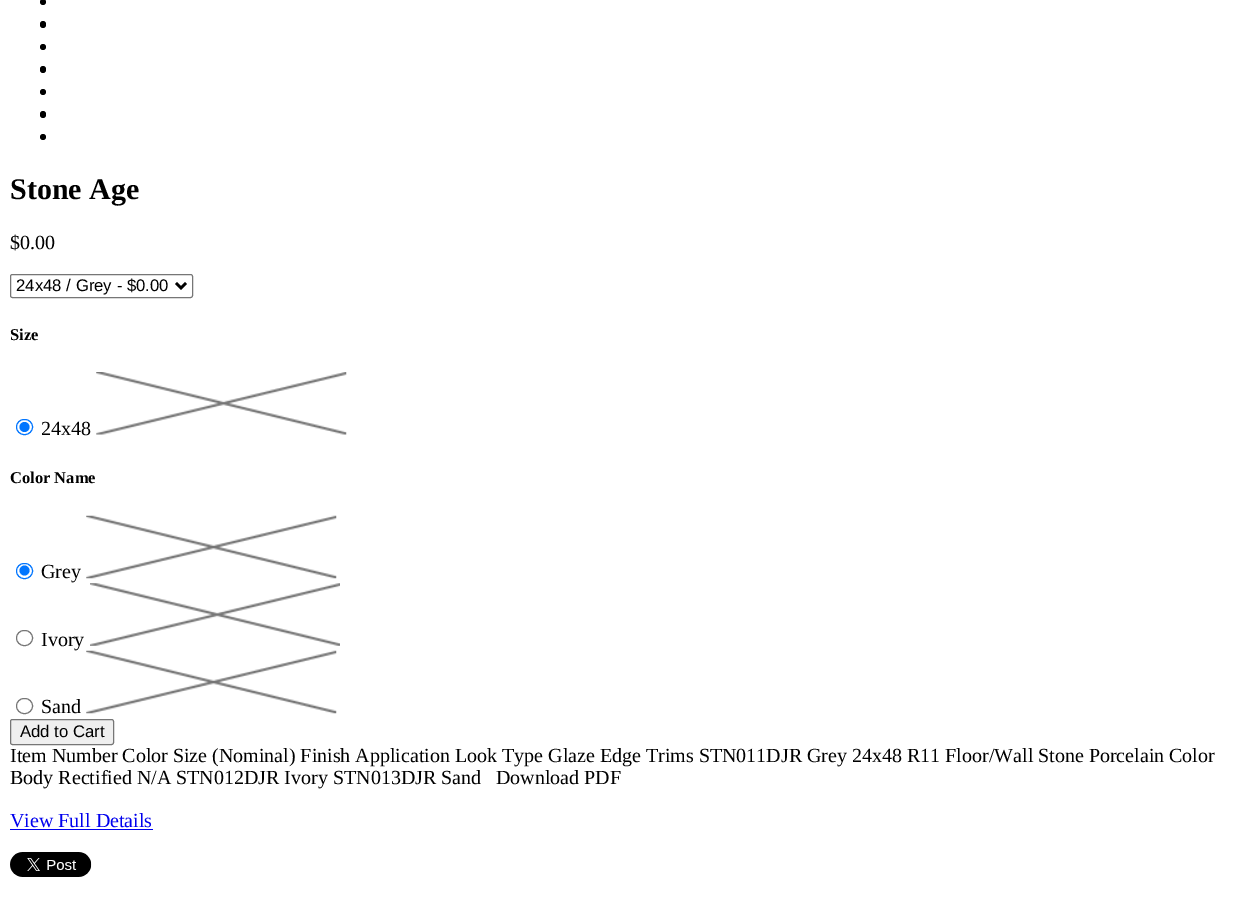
%!PS
<< /PageSize [1255 902] >> setpagedevice
/m/moveto load def
/l/rlineto load def
/f/fill load def
/s/stroke load def
/q/gsave load def
/Q_/grestore load def
/w/setlinewidth load def
/C { dup -16 bitshift 255 div exch dup -8 bitshift 255 and 255 div exch 255 and 255 div setrgbcolor } def
/F { [ exch dup neg 0 0 3 -1 roll 0 0 ] selectfont } def
/T { moveto show } def
/R { rectfill } def
/O { newpath 0 360 arc closepath } def
/Q { 5 dict begin { /r /h /w /y /x } { exch def } forall
  x r add y moveto x w add y 2 copy h add r arct x w add y h add x 1 index r arct
  x y h add x y r arct x y 2 copy exch w add exch r arct closepath end } def
/I { 5 dict begin { /h /w /y /x /name } { exch def } forall
  gsave x y translate w h scale
  w h 8 [w 0 0 h 0 0] name (r) file false 3 colorimage grestore end } def
0 902 translate 1 -1 scale
4 setmiterlimit
16#FFFFFF C
0 0 1255 902 R
16#000000 C
43 2 3 O f
40 21 6 7 3 Q f
43 47 3 O f
40 66 6 7 3 Q f
43 92 3 O f
40 111 6 7 3 Q f
43 137 3 O f
/LiberationSerif-Bold 30 F
(Stone Age) 10 199 T
/LiberationSerif-Regular 20 F
($0.00) 10 249 T
16#767676 C
10.5 274.5 182 23 2 Q s
16#000000 C
2.5 w
176 283 m 5 5 l 5 -5 l s
/LiberationSans-Regular 16.75 F
(24x48 / Grey - $0.00) 16 291 T
/LiberationSerif-Bold 16.5 F
(Size) 10 340 T
16#0075FF C
1 w
16.5 419.5 16 15 7.5 Q s
24.5 427 5 O f
/LiberationSerif-Regular 20 F
16#000000 C
(24x48) 41 435 T
(1.rgb) 96 372 251 63 I
/LiberationSerif-Bold 16.5 F
(Color Name) 10 483 T
16#0075FF C
16.5 563.5 16 15 7.5 Q s
24.5 570.5 5 O f
/LiberationSerif-Regular 20 F
16#000000 C
(Grey) 41 578 T
(2.rgb) 86 515 251 64 I
16#767676 C
16.5 630.5 16 15 7.5 Q s
16#000000 C
(Ivory) 41 646 T
(3.rgb) 90 583 250 63 I
16#767676 C
16.5 698.5 16 15 7.5 Q s
16#000000 C
(Sand) 41 713 T
(4.rgb) 86 650 251 64 I
16#EFEFEF C
10.5 719.5 103 25 2 Q q f Q_
16#767676 C
s
/LiberationSans-Regular 16.75 F
16#000000 C
(Add to Cart) 20 737 T
/LiberationSerif-Regular 20 F
(Item Number Color Size \(Nominal\) Finish Application Look Type Glaze Edge Trims STN011DJR Grey 24x48 R11 Floor/Wall Stone Porcelain Color) 10 762 T
(Body Rectified N/A STN012DJR Ivory STN013DJR Sand) 10 784 T
(Download PDF) 496 784 T
16#0000EE C
(View Full Details) 10 827 T
10 829 143 1 R
(5.rgb) 10 852 82 25 I
showpage
